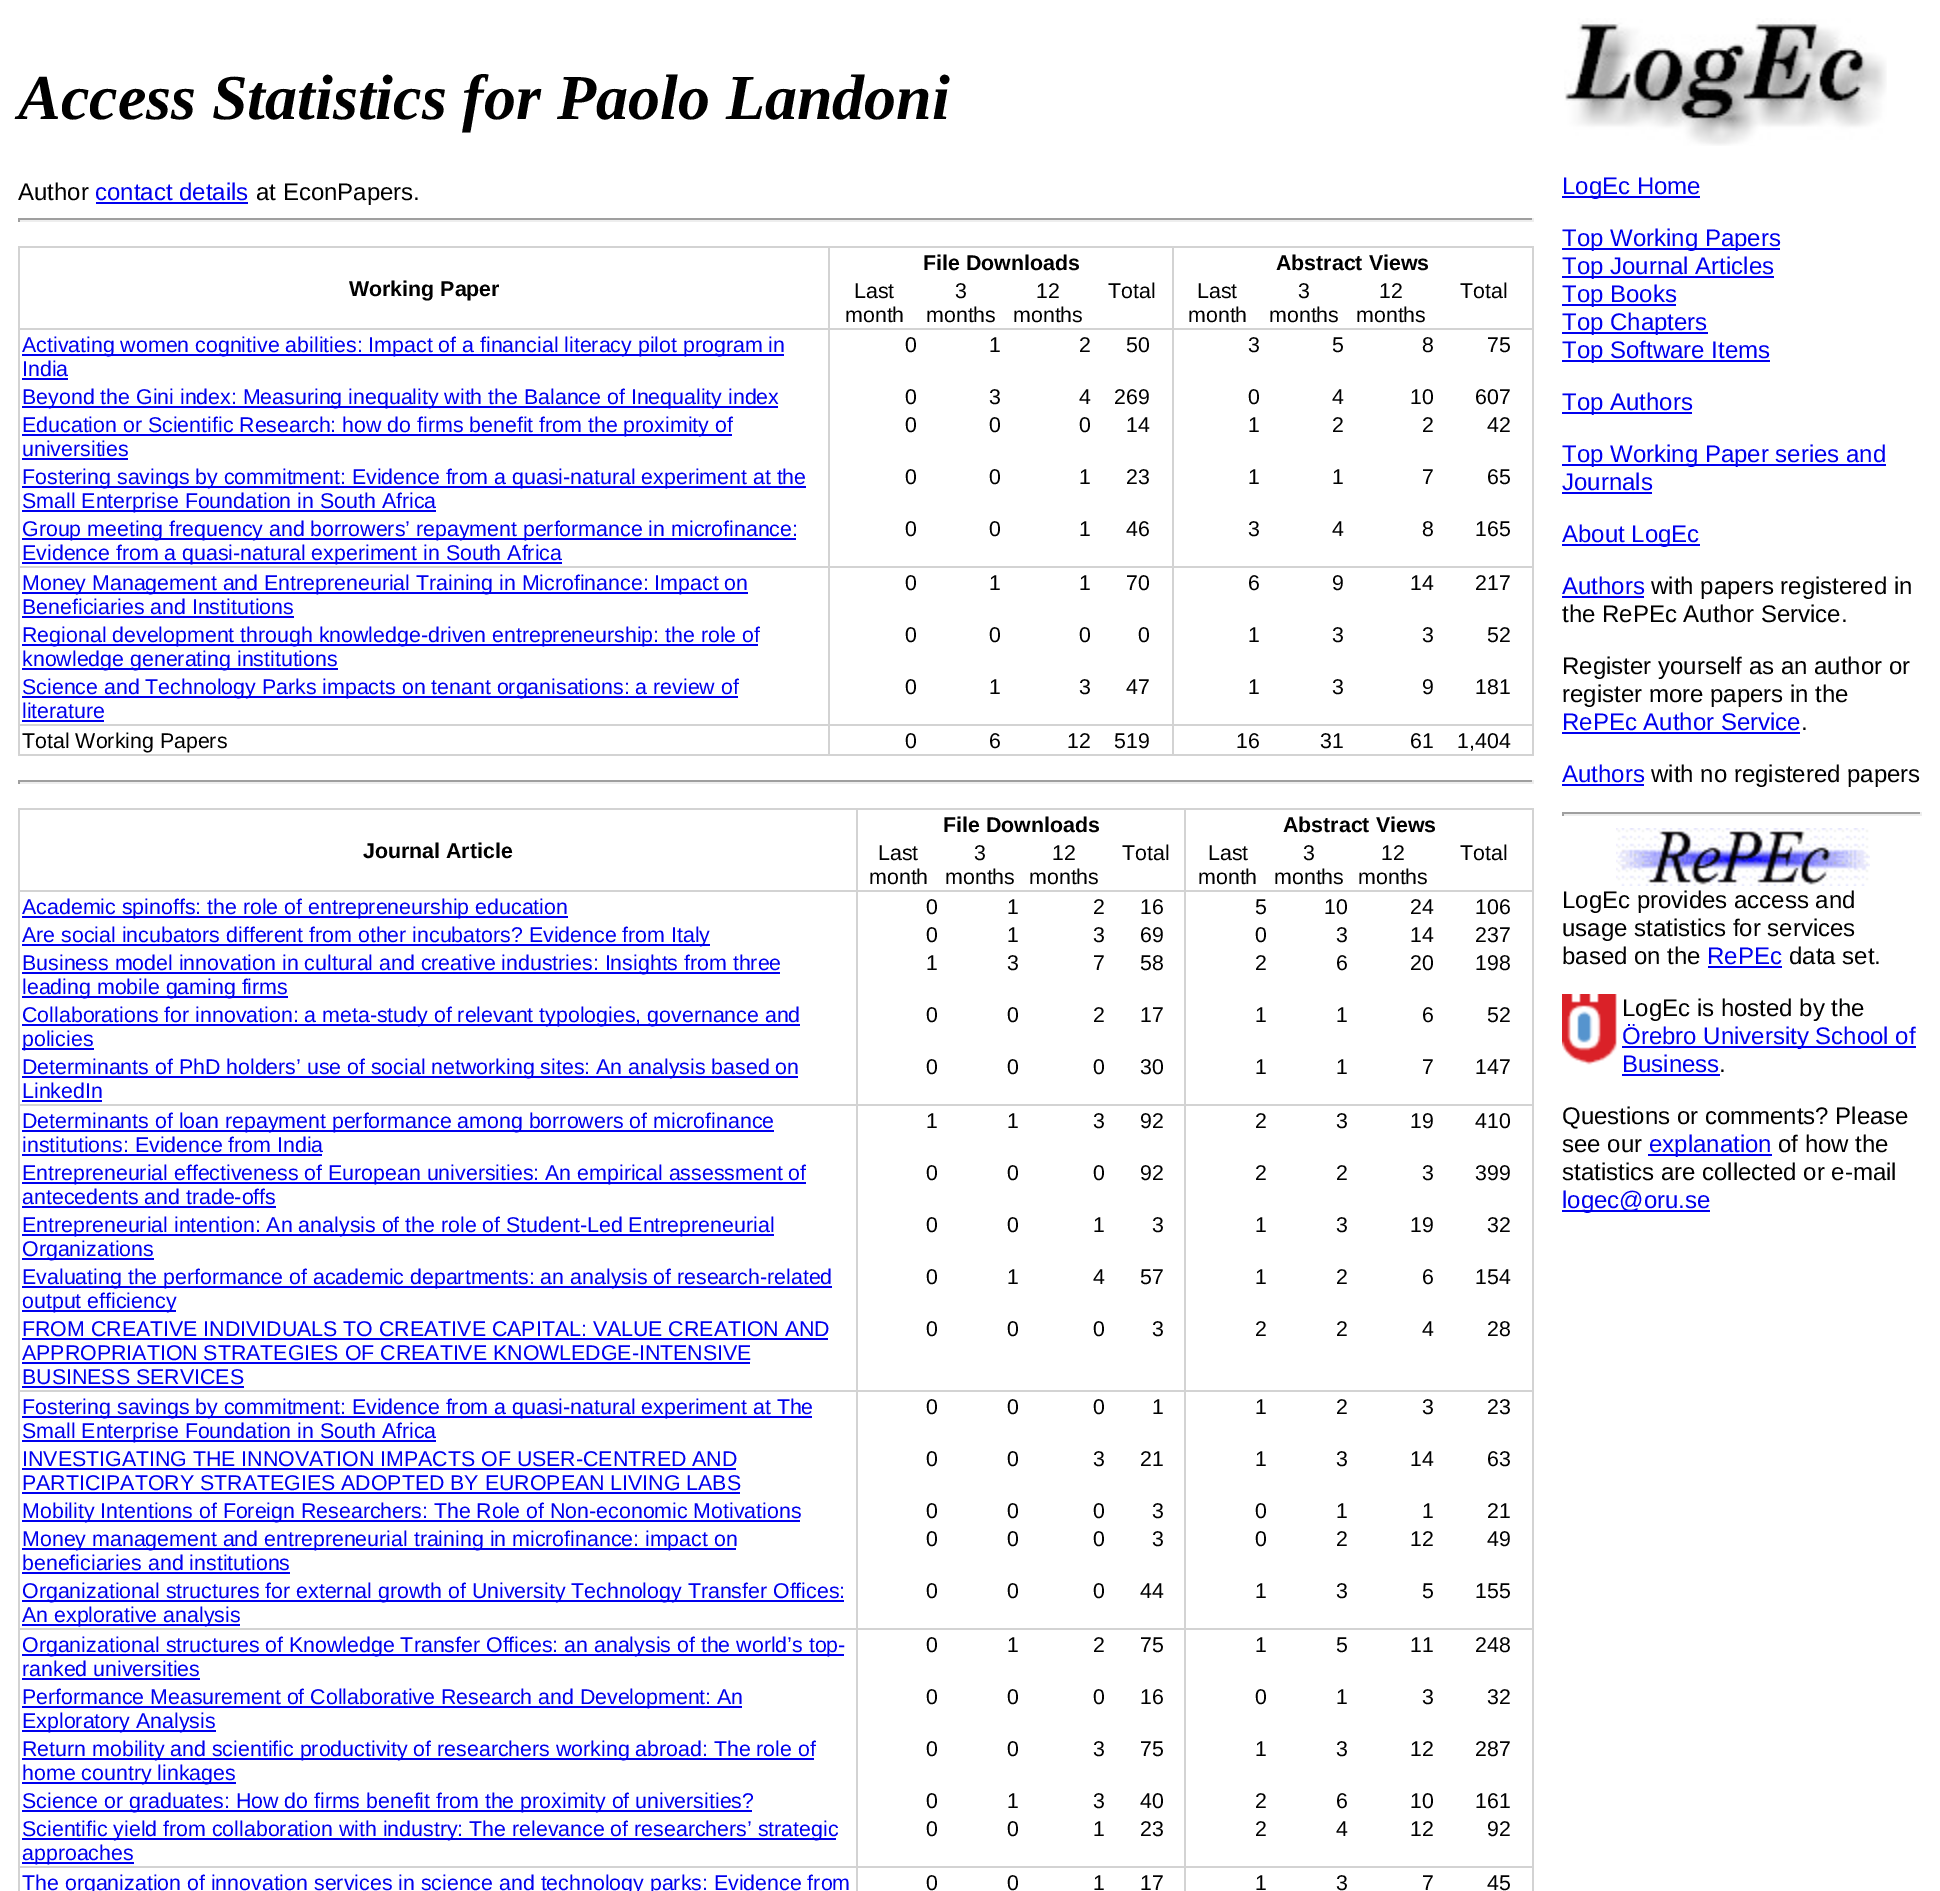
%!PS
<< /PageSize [1940 1891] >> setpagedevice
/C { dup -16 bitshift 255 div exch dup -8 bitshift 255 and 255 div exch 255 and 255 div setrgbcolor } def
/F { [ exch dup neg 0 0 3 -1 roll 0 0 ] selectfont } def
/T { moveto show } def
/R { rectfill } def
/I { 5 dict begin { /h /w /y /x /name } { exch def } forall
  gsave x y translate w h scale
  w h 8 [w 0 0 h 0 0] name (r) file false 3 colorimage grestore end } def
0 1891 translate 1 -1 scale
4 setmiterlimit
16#FFFFFF C
0 0 1940 1891 R
/LiberationSerif-BoldItalic 64 F
16#000000 C
(Access Statistics for Paolo Landoni) 18 119 T
/LiberationSans-Regular 24 F
(Author) 18 200 T
16#0000EE C
(contact details) 95 200 T
96 202 152 2 R
16#000000 C
(at EconPapers.) 256 200 T
16#9F9F9F C
18 218 1516 2 R
16#EEEEEE C
1532 218 2 4 R
18 220 1516 2 R
16#9F9F9F C
18 218 2 4 R
16#D3D3D3 C
828 246 2 510 R
18 246 2 510 R
1172 246 2 510 R
1532 246 2 510 R
18 246 1516 2 R
/LiberationSans-Bold 21.35 F
16#000000 C
(File Downloads) 923 270 T
(Abstract Views) 1276 270 T
(Working Paper) 349 296 T
16#D3D3D3 C
18 328 1516 2 R
/LiberationSans-Regular 21.35 F
16#000000 C
(Last) 854 298 T
(month) 845 322 T
(3) 955 298 T
(months) 926 322 T
(12) 1036 298 T
(months) 1013 322 T
(Total) 1108 298 T
(Last) 1197 298 T
(month) 1188 322 T
(3) 1298 298 T
(months) 1269 322 T
(12) 1379 298 T
(months) 1356 322 T
(Total) 1460 298 T
16#0000EE C
22 354 762 2 R
(Activating women cognitive abilities: Impact of a financial literacy pilot program in) 22 352 T
(India) 22 376 T
22 378 46 2 R
16#000000 C
(0) 905 352 T
(1) 989 352 T
(2) 1079 352 T
(50) 1126 352 T
(3) 1248 352 T
(5) 1332 352 T
(8) 1422 352 T
(75) 1487 352 T
16#0000EE C
22 406 756 2 R
(Beyond the Gini index: Measuring inequality with the Balance of Inequality index) 22 404 T
16#000000 C
(0) 905 404 T
(3) 989 404 T
(4) 1079 404 T
(269) 1114 404 T
(0) 1248 404 T
(4) 1332 404 T
(10) 1410 404 T
(607) 1475 404 T
16#0000EE C
22 434 710 2 R
(Education or Scientific Research: how do firms benefit from the proximity of) 22 432 T
(universities) 22 456 T
22 458 106 2 R
16#000000 C
(0) 905 432 T
(0) 989 432 T
(0) 1079 432 T
(14) 1126 432 T
(1) 1248 432 T
(2) 1332 432 T
(2) 1422 432 T
(42) 1487 432 T
16#0000EE C
22 486 784 2 R
(Fostering savings by commitment: Evidence from a quasi‐natural experiment at the) 22 484 T
22 510 414 2 R
(Small Enterprise Foundation in South Africa) 22 508 T
16#000000 C
(0) 905 484 T
(0) 989 484 T
(1) 1079 484 T
(23) 1126 484 T
(1) 1248 484 T
(1) 1332 484 T
(7) 1422 484 T
(65) 1487 484 T
16#D3D3D3 C
18 566 1516 2 R
16#0000EE C
22 538 774 2 R
(Group meeting frequency and borrowers’ repayment performance in microfinance:) 22 536 T
22 562 540 2 R
(Evidence from a quasi-natural experiment in South Africa) 22 560 T
16#000000 C
(0) 905 536 T
(0) 989 536 T
(1) 1079 536 T
(46) 1126 536 T
(3) 1248 536 T
(4) 1332 536 T
(8) 1422 536 T
(165) 1475 536 T
16#0000EE C
22 592 726 2 R
(Money Management and Entrepreneurial Training in Microfinance: Impact on) 22 590 T
(Beneficiaries and Institutions) 22 614 T
22 616 272 2 R
16#000000 C
(0) 905 590 T
(1) 989 590 T
(1) 1079 590 T
(70) 1126 590 T
(6) 1248 590 T
(9) 1332 590 T
(14) 1410 590 T
(217) 1475 590 T
16#0000EE C
22 644 736 2 R
(Regional development through knowledge-driven entrepreneurship: the role of) 22 642 T
22 668 316 2 R
(knowledge generating institutions) 22 666 T
16#000000 C
(0) 905 642 T
(0) 989 642 T
(0) 1079 642 T
(0) 1138 642 T
(1) 1248 642 T
(3) 1332 642 T
(3) 1422 642 T
(52) 1487 642 T
16#D3D3D3 C
18 724 1516 2 R
16#0000EE C
22 696 716 2 R
(Science and Technology Parks impacts on tenant organisations: a review of) 22 694 T
(literature) 22 718 T
22 720 82 2 R
16#000000 C
(0) 905 694 T
(1) 989 694 T
(3) 1079 694 T
(47) 1126 694 T
(1) 1248 694 T
(3) 1332 694 T
(9) 1422 694 T
(181) 1475 694 T
16#D3D3D3 C
18 754 1516 2 R
16#000000 C
(Total Working Papers) 22 748 T
(0) 905 748 T
(6) 989 748 T
(12) 1067 748 T
(519) 1114 748 T
(16) 1236 748 T
(31) 1320 748 T
(61) 1410 748 T
(1,404) 1457 748 T
16#9F9F9F C
18 780 1516 2 R
16#EEEEEE C
1532 780 2 4 R
18 782 1516 2 R
16#9F9F9F C
18 780 2 4 R
16#D3D3D3 C
856 808 2 1083 R
18 808 2 1083 R
1184 808 2 1083 R
1532 808 2 1083 R
18 808 1516 2 R
/LiberationSans-Bold 21.35 F
16#000000 C
(File Downloads) 943 832 T
(Abstract Views) 1283 832 T
(Journal Article) 363 858 T
16#D3D3D3 C
18 890 1516 2 R
/LiberationSans-Regular 21.35 F
16#000000 C
(Last) 878 860 T
(month) 869 884 T
(3) 974 860 T
(months) 945 884 T
(12) 1052 860 T
(months) 1029 884 T
(Total) 1122 860 T
(Last) 1208 860 T
(month) 1198 884 T
(3) 1303 860 T
(months) 1274 884 T
(12) 1381 860 T
(months) 1358 884 T
(Total) 1460 860 T
16#0000EE C
22 916 546 2 R
(Academic spinoffs: the role of entrepreneurship education) 22 914 T
16#000000 C
(0) 926 914 T
(1) 1007 914 T
(2) 1093 914 T
(16) 1140 914 T
(5) 1255 914 T
(10) 1324 914 T
(24) 1410 914 T
(106) 1475 914 T
16#0000EE C
22 944 688 2 R
(Are social incubators different from other incubators? Evidence from Italy) 22 942 T
16#000000 C
(0) 926 942 T
(1) 1007 942 T
(3) 1093 942 T
(69) 1140 942 T
(0) 1255 942 T
(3) 1336 942 T
(14) 1410 942 T
(237) 1475 942 T
16#0000EE C
22 972 758 2 R
(Business model innovation in cultural and creative industries: Insights from three) 22 970 T
22 996 266 2 R
(leading mobile gaming firms) 22 994 T
16#000000 C
(1) 926 970 T
(3) 1007 970 T
(7) 1093 970 T
(58) 1140 970 T
(2) 1255 970 T
(6) 1336 970 T
(20) 1410 970 T
(198) 1475 970 T
16#0000EE C
22 1024 778 2 R
(Collaborations for innovation: a meta-study of relevant typologies, governance and) 22 1022 T
22 1048 72 2 R
(policies) 22 1046 T
16#000000 C
(0) 926 1022 T
(0) 1007 1022 T
(2) 1093 1022 T
(17) 1140 1022 T
(1) 1255 1022 T
(1) 1336 1022 T
(6) 1422 1022 T
(52) 1487 1022 T
16#D3D3D3 C
18 1104 1516 2 R
16#0000EE C
22 1076 776 2 R
(Determinants of PhD holders’ use of social networking sites: An analysis based on) 22 1074 T
(LinkedIn) 22 1098 T
22 1100 80 2 R
16#000000 C
(0) 926 1074 T
(0) 1007 1074 T
(0) 1093 1074 T
(30) 1140 1074 T
(1) 1255 1074 T
(1) 1336 1074 T
(7) 1422 1074 T
(147) 1475 1074 T
16#0000EE C
22 1130 752 2 R
(Determinants of loan repayment performance among borrowers of microfinance) 22 1128 T
(institutions: Evidence from India) 22 1152 T
22 1154 300 2 R
16#000000 C
(1) 926 1128 T
(1) 1007 1128 T
(3) 1093 1128 T
(92) 1140 1128 T
(2) 1255 1128 T
(3) 1336 1128 T
(19) 1410 1128 T
(410) 1475 1128 T
16#0000EE C
22 1182 784 2 R
(Entrepreneurial effectiveness of European universities: An empirical assessment of) 22 1180 T
(antecedents and trade-offs) 22 1204 T
22 1206 254 2 R
16#000000 C
(0) 926 1180 T
(0) 1007 1180 T
(0) 1093 1180 T
(92) 1140 1180 T
(2) 1255 1180 T
(2) 1336 1180 T
(3) 1422 1180 T
(399) 1475 1180 T
16#0000EE C
22 1234 752 2 R
(Entrepreneurial intention: An analysis of the role of Student-Led Entrepreneurial) 22 1232 T
22 1258 132 2 R
(Organizations) 22 1256 T
16#000000 C
(0) 926 1232 T
(0) 1007 1232 T
(1) 1093 1232 T
(3) 1152 1232 T
(1) 1255 1232 T
(3) 1336 1232 T
(19) 1410 1232 T
(32) 1487 1232 T
16#0000EE C
22 1286 810 2 R
(Evaluating the performance of academic departments: an analysis of research-related) 22 1284 T
22 1310 154 2 R
(output efficiency) 22 1308 T
16#000000 C
(0) 926 1284 T
(1) 1007 1284 T
(4) 1093 1284 T
(57) 1140 1284 T
(1) 1255 1284 T
(2) 1336 1284 T
(6) 1422 1284 T
(154) 1475 1284 T
16#D3D3D3 C
18 1390 1516 2 R
16#0000EE C
(FROM CREATIVE INDIVIDUALS TO CREATIVE CAPITAL: VALUE CREATION AND) 22 1336 T
22 1338 806 2 R
(APPROPRIATION STRATEGIES OF CREATIVE KNOWLEDGE-INTENSIVE) 22 1360 T
22 1362 728 2 R
(BUSINESS SERVICES) 22 1384 T
22 1386 222 2 R
16#000000 C
(0) 926 1336 T
(0) 1007 1336 T
(0) 1093 1336 T
(3) 1152 1336 T
(2) 1255 1336 T
(2) 1336 1336 T
(4) 1422 1336 T
(28) 1487 1336 T
16#0000EE C
22 1416 790 2 R
(Fostering savings by commitment: Evidence from a quasi-natural experiment at The) 22 1414 T
22 1440 414 2 R
(Small Enterprise Foundation in South Africa) 22 1438 T
16#000000 C
(0) 926 1414 T
(0) 1007 1414 T
(0) 1093 1414 T
(1) 1152 1414 T
(1) 1255 1414 T
(2) 1336 1414 T
(3) 1422 1414 T
(23) 1487 1414 T
16#0000EE C
(INVESTIGATING THE INNOVATION IMPACTS OF USER-CENTRED AND) 22 1466 T
22 1468 714 2 R
(PARTICIPATORY STRATEGIES ADOPTED BY EUROPEAN LIVING LABS) 22 1490 T
22 1492 718 2 R
16#000000 C
(0) 926 1466 T
(0) 1007 1466 T
(3) 1093 1466 T
(21) 1140 1466 T
(1) 1255 1466 T
(3) 1336 1466 T
(14) 1410 1466 T
(63) 1487 1466 T
16#0000EE C
22 1520 778 2 R
(Mobility Intentions of Foreign Researchers: The Role of Non-economic Motivations) 22 1518 T
16#000000 C
(0) 926 1518 T
(0) 1007 1518 T
(0) 1093 1518 T
(3) 1152 1518 T
(0) 1255 1518 T
(1) 1336 1518 T
(1) 1422 1518 T
(21) 1487 1518 T
16#0000EE C
22 1548 714 2 R
(Money management and entrepreneurial training in microfinance: impact on) 22 1546 T
(beneficiaries and institutions) 22 1570 T
22 1572 268 2 R
16#000000 C
(0) 926 1546 T
(0) 1007 1546 T
(0) 1093 1546 T
(3) 1152 1546 T
(0) 1255 1546 T
(2) 1336 1546 T
(12) 1410 1546 T
(49) 1487 1546 T
16#D3D3D3 C
18 1628 1516 2 R
16#0000EE C
22 1600 822 2 R
(Organizational structures for external growth of University Technology Transfer Offices:) 22 1598 T
22 1624 218 2 R
(An explorative analysis) 22 1622 T
16#000000 C
(0) 926 1598 T
(0) 1007 1598 T
(0) 1093 1598 T
(44) 1140 1598 T
(1) 1255 1598 T
(3) 1336 1598 T
(5) 1422 1598 T
(155) 1475 1598 T
16#0000EE C
22 1654 822 2 R
(Organizational structures of Knowledge Transfer Offices: an analysis of the world’s top-) 22 1652 T
(ranked universities) 22 1676 T
22 1678 178 2 R
16#000000 C
(0) 926 1652 T
(1) 1007 1652 T
(2) 1093 1652 T
(75) 1140 1652 T
(1) 1255 1652 T
(5) 1336 1652 T
(11) 1410 1652 T
(248) 1475 1652 T
16#0000EE C
22 1706 720 2 R
(Performance Measurement of Collaborative Research and Development: An) 22 1704 T
22 1730 194 2 R
(Exploratory Analysis) 22 1728 T
16#000000 C
(0) 926 1704 T
(0) 1007 1704 T
(0) 1093 1704 T
(16) 1140 1704 T
(0) 1255 1704 T
(1) 1336 1704 T
(3) 1422 1704 T
(32) 1487 1704 T
16#0000EE C
22 1758 792 2 R
(Return mobility and scientific productivity of researchers working abroad: The role of) 22 1756 T
22 1782 214 2 R
(home country linkages) 22 1780 T
16#000000 C
(0) 926 1756 T
(0) 1007 1756 T
(3) 1093 1756 T
(75) 1140 1756 T
(1) 1255 1756 T
(3) 1336 1756 T
(12) 1410 1756 T
(287) 1475 1756 T
16#0000EE C
22 1810 730 2 R
(Science or graduates: How do firms benefit from the proximity of universities?) 22 1808 T
16#000000 C
(0) 926 1808 T
(1) 1007 1808 T
(3) 1093 1808 T
(40) 1140 1808 T
(2) 1255 1808 T
(6) 1336 1808 T
(10) 1410 1808 T
(161) 1475 1808 T
16#D3D3D3 C
18 1866 1516 2 R
16#0000EE C
22 1838 814 2 R
(Scientific yield from collaboration with industry: The relevance of researchers’ strategic) 22 1836 T
22 1862 112 2 R
(approaches) 22 1860 T
16#000000 C
(0) 926 1836 T
(0) 1007 1836 T
(1) 1093 1836 T
(23) 1140 1836 T
(2) 1255 1836 T
(4) 1336 1836 T
(12) 1410 1836 T
(92) 1487 1836 T
16#0000EE C
(The organization of innovation services in science and technology parks: Evidence from) 22 1890 T
16#000000 C
(0) 926 1890 T
(0) 1007 1890 T
(1) 1093 1890 T
(17) 1140 1890 T
(1) 1255 1890 T
(3) 1336 1890 T
(7) 1422 1890 T
(45) 1487 1890 T
(1.rgb) 1564 18 323 128 I
16#0000EE C
1562 196 138 2 R
/LiberationSans-Regular 24 F
(LogEc Home) 1562 194 T
1562 248 218 2 R
(Top Working Papers) 1562 246 T
1562 276 212 2 R
(Top Journal Articles) 1562 274 T
1562 304 114 2 R
(Top Books) 1562 302 T
1562 332 146 2 R
(Top Chapters) 1562 330 T
1562 360 208 2 R
(Top Software Items) 1562 358 T
1562 412 130 2 R
(Top Authors) 1562 410 T
1562 464 324 2 R
(Top Working Paper series and) 1562 462 T
(Journals) 1562 490 T
1562 492 90 2 R
1562 544 138 2 R
(About LogEc) 1562 542 T
(Authors) 1562 594 T
1562 596 82 2 R
16#000000 C
(with papers registered in) 1651 594 T
(the RePEc Author Service.) 1562 622 T
(Register yourself as an author or) 1562 674 T
(register more papers in the) 1562 702 T
16#0000EE C
(RePEc Author Service) 1562 730 T
1562 732 238 2 R
16#000000 C
(.) 1801 730 T
16#0000EE C
(Authors) 1562 782 T
1562 784 82 2 R
16#000000 C
(with no registered papers) 1651 782 T
16#9F9F9F C
1562 812 360 2 R
16#EEEEEE C
1920 812 2 4 R
1562 814 360 2 R
16#9F9F9F C
1562 812 2 4 R
(2.rgb) 1616 828 254 58 I
16#000000 C
(LogEc provides access and) 1562 908 T
(usage statistics for services) 1562 936 T
(based on the) 1562 964 T
16#0000EE C
(RePEc) 1707 964 T
1708 966 74 2 R
16#000000 C
(data set.) 1789 964 T
(3.rgb) 1562 994 55 71 I
(LogEc is hosted by the) 1622 1016 T
16#0000EE C
1622 1046 294 2 R
(Örebro University School of) 1622 1044 T
(Business) 1622 1072 T
1622 1074 98 2 R
16#000000 C
(.) 1719 1072 T
(Questions or comments? Please) 1562 1124 T
(see our) 1562 1152 T
16#0000EE C
1648 1154 124 2 R
(explanation) 1649 1152 T
16#000000 C
(of how the) 1778 1152 T
(statistics are collected or e-mail) 1562 1180 T
16#0000EE C
1562 1210 148 2 R
(logec@oru.se) 1562 1208 T
showpage
